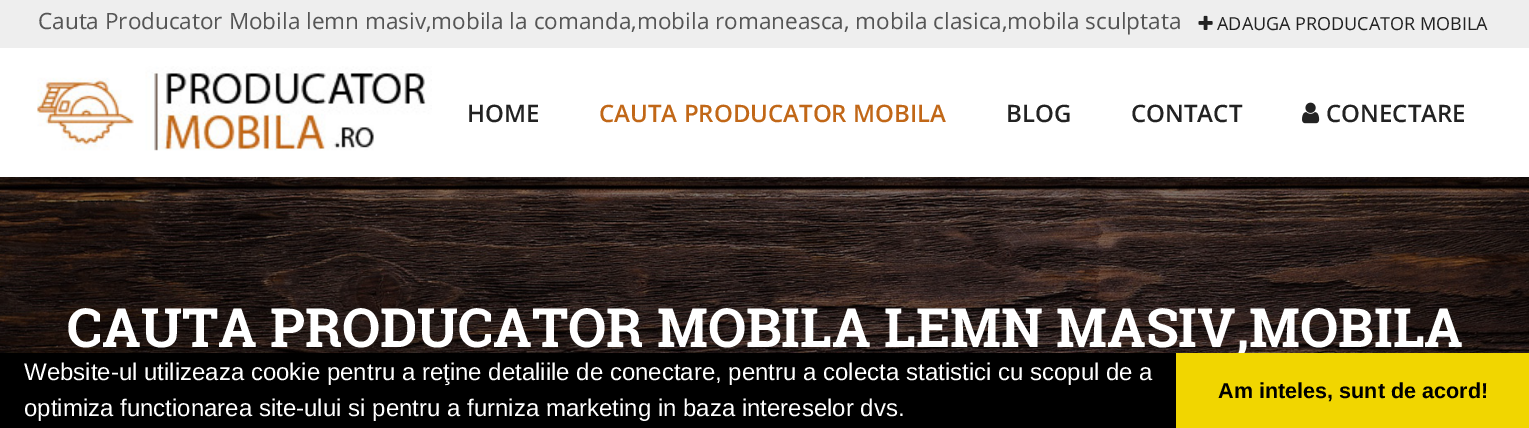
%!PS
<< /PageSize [1529 428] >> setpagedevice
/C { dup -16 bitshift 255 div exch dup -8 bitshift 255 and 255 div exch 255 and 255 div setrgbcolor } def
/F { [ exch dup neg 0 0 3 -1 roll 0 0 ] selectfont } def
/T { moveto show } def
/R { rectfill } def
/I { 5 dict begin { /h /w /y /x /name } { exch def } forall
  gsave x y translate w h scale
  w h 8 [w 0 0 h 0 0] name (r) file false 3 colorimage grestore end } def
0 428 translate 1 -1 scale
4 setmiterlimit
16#FFFFFF C
0 0 1529 428 R
16#EEEEEE C
0 0 1529 48 R
/OpenSans-Regular 22.5 F
16#555555 C
(Cauta Producator Mobila lemn masiv,mobila la comanda,mobila romaneasca, mobila clasica,mobila sculptata) 38 29 T
(1.rgb) 1198 15 15 15 I
/OpenSans-Regular 18 F
16#222222 C
(ADAUGA PRODUCATOR MOBILA) 1217 30 T
(2.rgb) 37 66 395 85 I
/OpenSans-SemiBold 24 F
(HOME) 467 122 T
16#C16717 C
(CAUTA PRODUCATOR MOBILA) 599 122 T
16#222222 C
(BLOG) 1006 122 T
(CONTACT) 1131 122 T
(3.rgb) 1302 102 18 22 I
(CONECTARE) 1326 122 T
(4.rgb) 0 177 1529 176 I
/RobotoSlab-Bold 54 F
16#FFFFFF C
(CAUTA PRODUCATOR MOBILA LEMN MASIV,MOBILA) 67 347 T
16#000000 C
0 353 1176 75 R
/LiberationSans-Regular 24 F
16#FFFFFF C
(Website-ul utilizeaza cookie pentru a reţine detaliile de conectare, pentru a colecta statistici cu scopul de a) 24 380 T
(optimiza functionarea site-ului si pentru a furniza marketing in baza intereselor dvs.) 24 416 T
16#F1D600 C
1176 353 353 75 R
/LiberationSans-Bold 21.6 F
16#000000 C
(Am inteles, sunt de acord!) 1218 398 T
showpage
